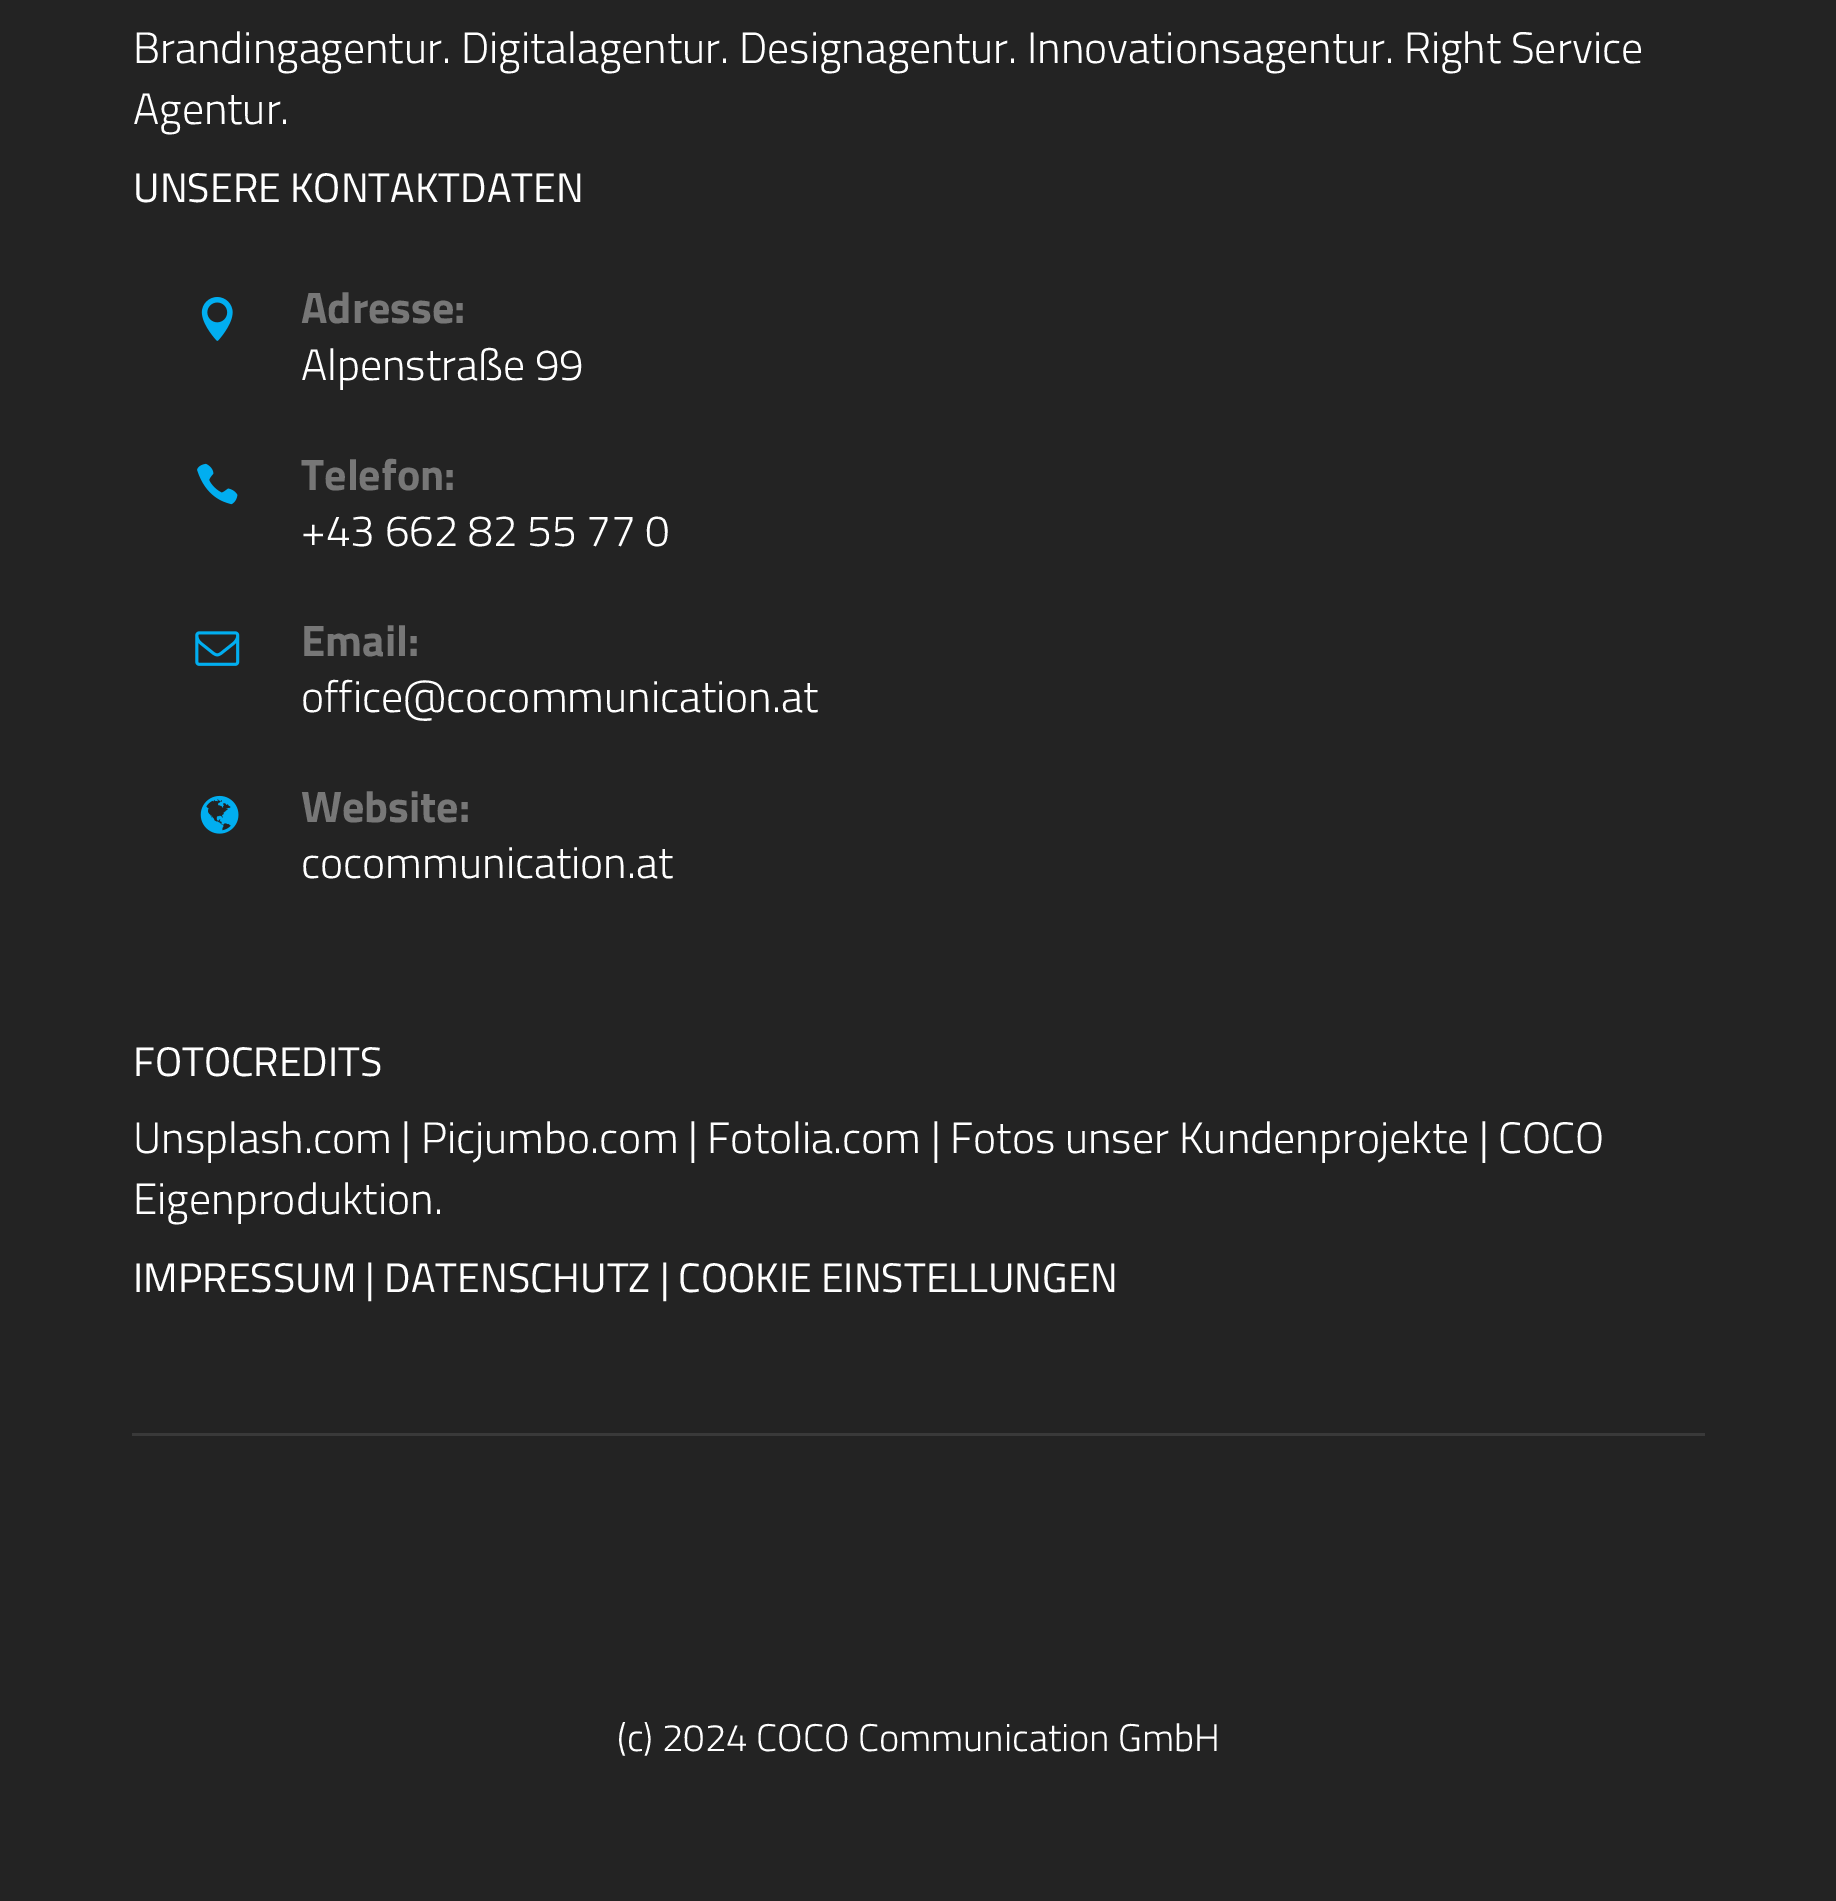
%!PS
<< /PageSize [1836 1901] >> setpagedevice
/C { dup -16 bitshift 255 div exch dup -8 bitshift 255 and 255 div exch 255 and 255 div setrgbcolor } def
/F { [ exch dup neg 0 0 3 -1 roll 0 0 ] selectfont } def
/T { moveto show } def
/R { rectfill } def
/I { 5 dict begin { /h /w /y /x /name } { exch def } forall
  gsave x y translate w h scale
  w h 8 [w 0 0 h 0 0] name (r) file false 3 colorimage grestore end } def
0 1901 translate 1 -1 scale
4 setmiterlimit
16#232323 C
0 0 1836 1901 R
16#393939 C
132 1433 1573 3 R
/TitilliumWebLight-Light 44 F
16#FFFFFF C
(Brandingagentur. Digitalagentur. Designagentur. Innovationsagentur. Right Service) 133 63 T
(Agentur.) 133 124 T
/TitilliumWeb-Regular 41.25 F
(UNSERE KONTAKTDATEN) 133 202 T
(1.rgb) 201 297 32 44 I
/TitilliumWeb-Bold 44 F
16#777777 C
(Adresse:) 301 323 T
/TitilliumWebLight-Light 44 F
16#FFFFFF C
(Alpenstraße 99) 301 380 T
(2.rgb) 197 463 41 42 I
/TitilliumWeb-Bold 44 F
16#777777 C
(Telefon:) 301 490 T
/TitilliumWebLight-Light 44 F
16#FFFFFF C
(+43 662 82 55 77 0) 301 546 T
(3.rgb) 195 631 45 35 I
/TitilliumWeb-Bold 44 F
16#777777 C
(Email:) 301 656 T
/TitilliumWebLight-Light 44 F
16#FFFFFF C
(office@cocommunication.at) 301 712 T
(4.rgb) 200 795 39 39 I
/TitilliumWeb-Bold 44 F
16#777777 C
(Website:) 301 822 T
/TitilliumWebLight-Light 44 F
16#FFFFFF C
(cocommunication.at) 301 878 T
/TitilliumWeb-Regular 41.25 F
(FOTOCREDITS) 133 1076 T
/TitilliumWebLight-Light 44 F
(Unsplash.com | Picjumbo.com | Fotolia.com | Fotos unser Kundenprojekte | COCO) 133 1153 T
(Eigenproduktion.) 133 1214 T
/TitilliumWeb-Regular 41.25 F
(IMPRESSUM | DATENSCHUTZ | COOKIE EINSTELLUNGEN) 133 1292 T
/TitilliumWebLight-Light 38.5 F
(\(c\) 2024 COCO Communication GmbH) 617 1751 T
showpage
